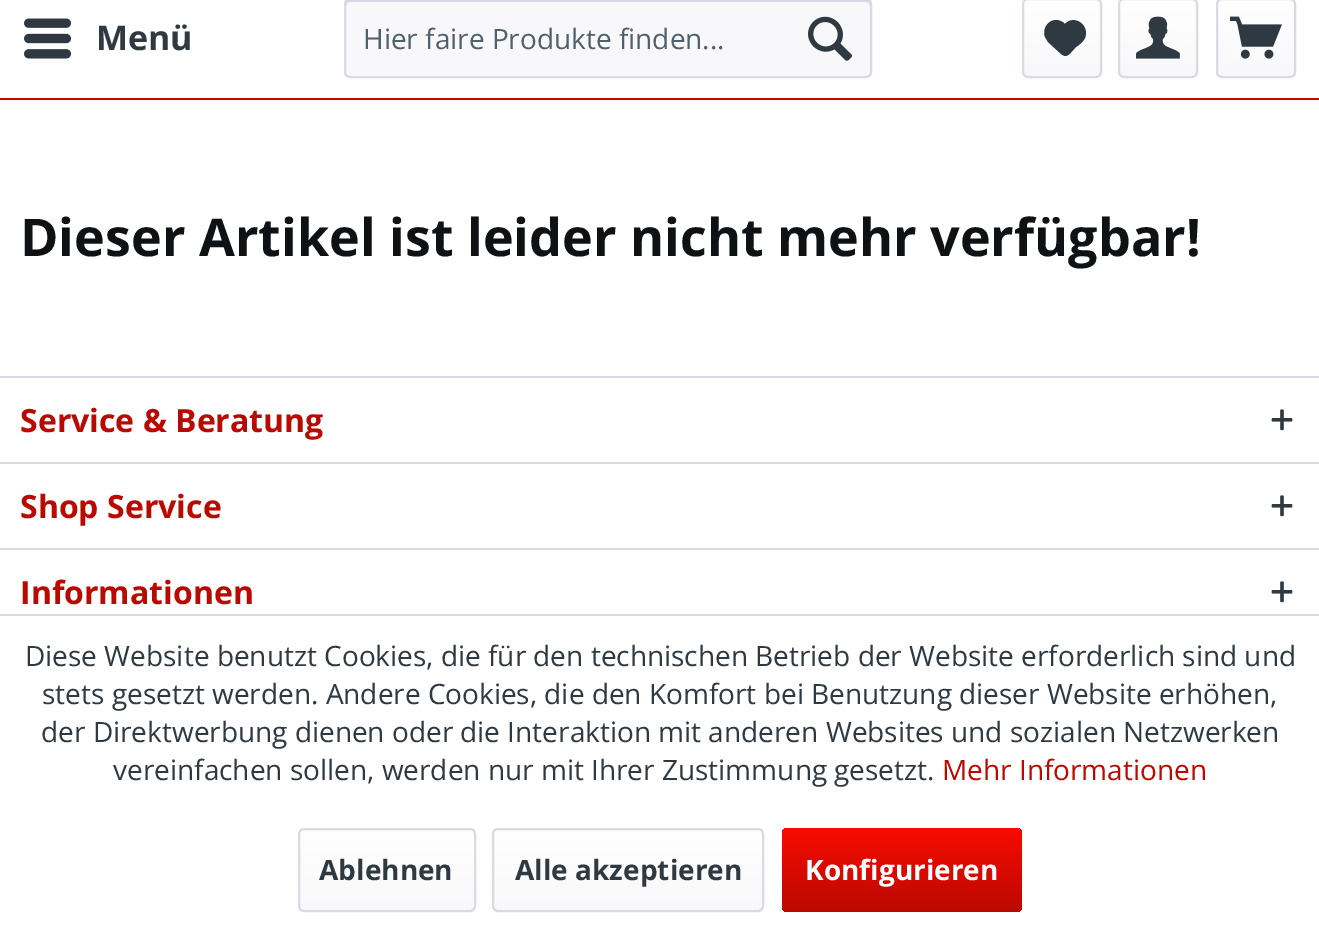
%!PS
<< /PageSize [1319 932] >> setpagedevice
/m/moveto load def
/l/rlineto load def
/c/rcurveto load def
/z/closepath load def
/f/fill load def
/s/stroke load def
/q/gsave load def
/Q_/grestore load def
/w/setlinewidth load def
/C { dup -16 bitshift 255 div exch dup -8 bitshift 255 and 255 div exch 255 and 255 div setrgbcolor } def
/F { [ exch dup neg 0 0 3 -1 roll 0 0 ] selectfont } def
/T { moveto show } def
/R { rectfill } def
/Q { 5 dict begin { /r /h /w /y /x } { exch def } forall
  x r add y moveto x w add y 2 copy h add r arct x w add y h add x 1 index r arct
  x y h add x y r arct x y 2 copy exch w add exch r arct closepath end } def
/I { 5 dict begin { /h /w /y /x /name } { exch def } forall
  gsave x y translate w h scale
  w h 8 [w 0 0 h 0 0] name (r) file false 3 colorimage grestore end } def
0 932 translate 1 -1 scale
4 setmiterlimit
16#FFFFFF C
0 0 1319 932 R
16#BA0900 C
0 98 1319 2 R
(1.rgb) 24 18 47 41 I
/OpenSans-Bold 34 F
16#2F3942 C
(Menü) 96 50 T
16#F8F8FA C
344 -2 528 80 6 Q f
16#DADAE5 C
350 2 m 516 0 l 2 0 4 2 4 4 c 0 -2 l 0 -2 -2 -4 -4 -4 c -516 0 l -2 0 -4 2 -4 4 c 0 2 l 0 -2 2 -4 4 -4 c z f
16#CBCBDB C
2 w
346.5 .5 m 1 -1 2 -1.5 3.5 -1.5 c 516 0 l 1.5 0 2.5 .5 3.5 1.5 c s
16#DADAE5 C
869.5 .5 m 1 1 1.5 2 1.5 3.5 c 0 68 l 0 1.5 -.5 2.5 -1.5 3.5 c -1 1 -2 1.5 -3.5 1.5 c -516 0 l -1.5 0 -2.5 -.5 -3.5 -1.5 c -1 -1 -1.5 -2 -1.5 -3.5 c 0 -68 l 0 -1.5 .5 -2.5 1.5 -3.5 c s
/OpenSans-Regular 28 F
16#4F606F C
(Hier faire Produkte finden...) 363 49 T
(2.rgb) 808 16 44 45 I
q 1024 0 76 76 4 Q clip newpath
<< /ShadingType 2 /ColorSpace /DeviceRGB /Coords [1062 0 1062 76] /Extend [true true] /Function << /FunctionType 2 /Domain [0 1] /C0 [1 1 1] /C1 [.973 .973 .98] /N 1 >> >> shfill Q_
16#DADAE5 C
1023 -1 78 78 5 Q s
16#2F3942 C
1056 20 m -8 0 -14 9 -11 17 c 3 5 l 12 11 l 7 7 10 0 16 -6 c 3 -2 7 -5 9 -9 c 5 -13 -11 -24 -20 -14 c -2 -2 -5 -4 -9 -4 c z f
q 1120 0 76 76 4 Q clip newpath
<< /ShadingType 2 /ColorSpace /DeviceRGB /Coords [1158 0 1158 76] /Extend [true true] /Function << /FunctionType 2 /Domain [0 1] /C0 [1 1 1] /C1 [.973 .973 .98] /N 1 >> >> shfill Q_
16#DADAE5 C
1119 -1 78 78 5 Q s
(3.rgb) 1136 16 44 43 I
q 1218 0 76 76 4 Q clip newpath
<< /ShadingType 2 /ColorSpace /DeviceRGB /Coords [1256 0 1256 76] /Extend [true true] /Function << /FunctionType 2 /Domain [0 1] /C0 [1 1 1] /C1 [.973 .973 .98] /N 1 >> >> shfill Q_
1217 -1 78 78 5 Q s
(4.rgb) 1230 16 52 43 I
/OpenSans-Bold 52 F
16#0F1215 C
(Dieser Artikel ist leider nicht mehr verfügbar!) 20 256 T
16#DADAE5 C
0 376 1319 2 R
/OpenSans-Bold 32 F
16#BA0900 C
(Service & Beratung) 20 432 T
(5.rgb) 1271 409 22 22 I
16#DADAE5 C
0 462 1319 2 R
16#BA0900 C
(Shop Service) 20 518 T
(5.rgb) 1271 495 22 22 I
16#DADAE5 C
0 548 1319 2 R
16#BA0900 C
(Informationen) 20 604 T
(5.rgb) 1271 581 22 22 I
16#DADAE5 C
0 614 1319 2 R
/OpenSans-Regular 28 F
16#2F3942 C
(Diese Website benutzt Cookies, die für den technischen Betrieb der Website erforderlich sind und) 25 666 T
(stets gesetzt werden. Andere Cookies, die den Komfort bei Benutzung dieser Website erhöhen,) 42 704 T
(der Direktwerbung dienen oder die Interaktion mit anderen Websites und sozialen Netzwerken) 41 742 T
(vereinfachen sollen, werden nur mit Ihrer Zustimmung gesetzt.) 113 780 T
16#BA0900 C
(Mehr Informationen) 942 780 T
q 300 830 174 80 4 Q clip newpath
<< /ShadingType 2 /ColorSpace /DeviceRGB /Coords [387 830 387 910] /Extend [true true] /Function << /FunctionType 2 /Domain [0 1] /C0 [1 1 1] /C1 [.973 .973 .98] /N 1 >> >> shfill Q_
16#DADAE5 C
299 829 176 82 5 Q s
/OpenSans-Bold 28 F
16#2F3942 C
(Ablehnen) 319 880 T
q 494 830 268 80 4 Q clip newpath
<< /ShadingType 2 /ColorSpace /DeviceRGB /Coords [628 830 628 910] /Extend [true true] /Function << /FunctionType 2 /Domain [0 1] /C0 [1 1 1] /C1 [.973 .973 .98] /N 1 >> >> shfill Q_
16#DADAE5 C
493 829 270 82 5 Q s
16#2F3942 C
(Alle akzeptieren) 515 880 T
q 782 828 240 84 6 Q clip newpath
<< /ShadingType 2 /ColorSpace /DeviceRGB /Coords [902 828 902 912] /Extend [true true] /Function << /FunctionType 2 /Domain [0 1] /C0 [.969 .047 0] /C1 [.729 .035 0] /N 1 >> >> shfill Q_
16#FFFFFF C
(Konfigurieren) 805 880 T
showpage
